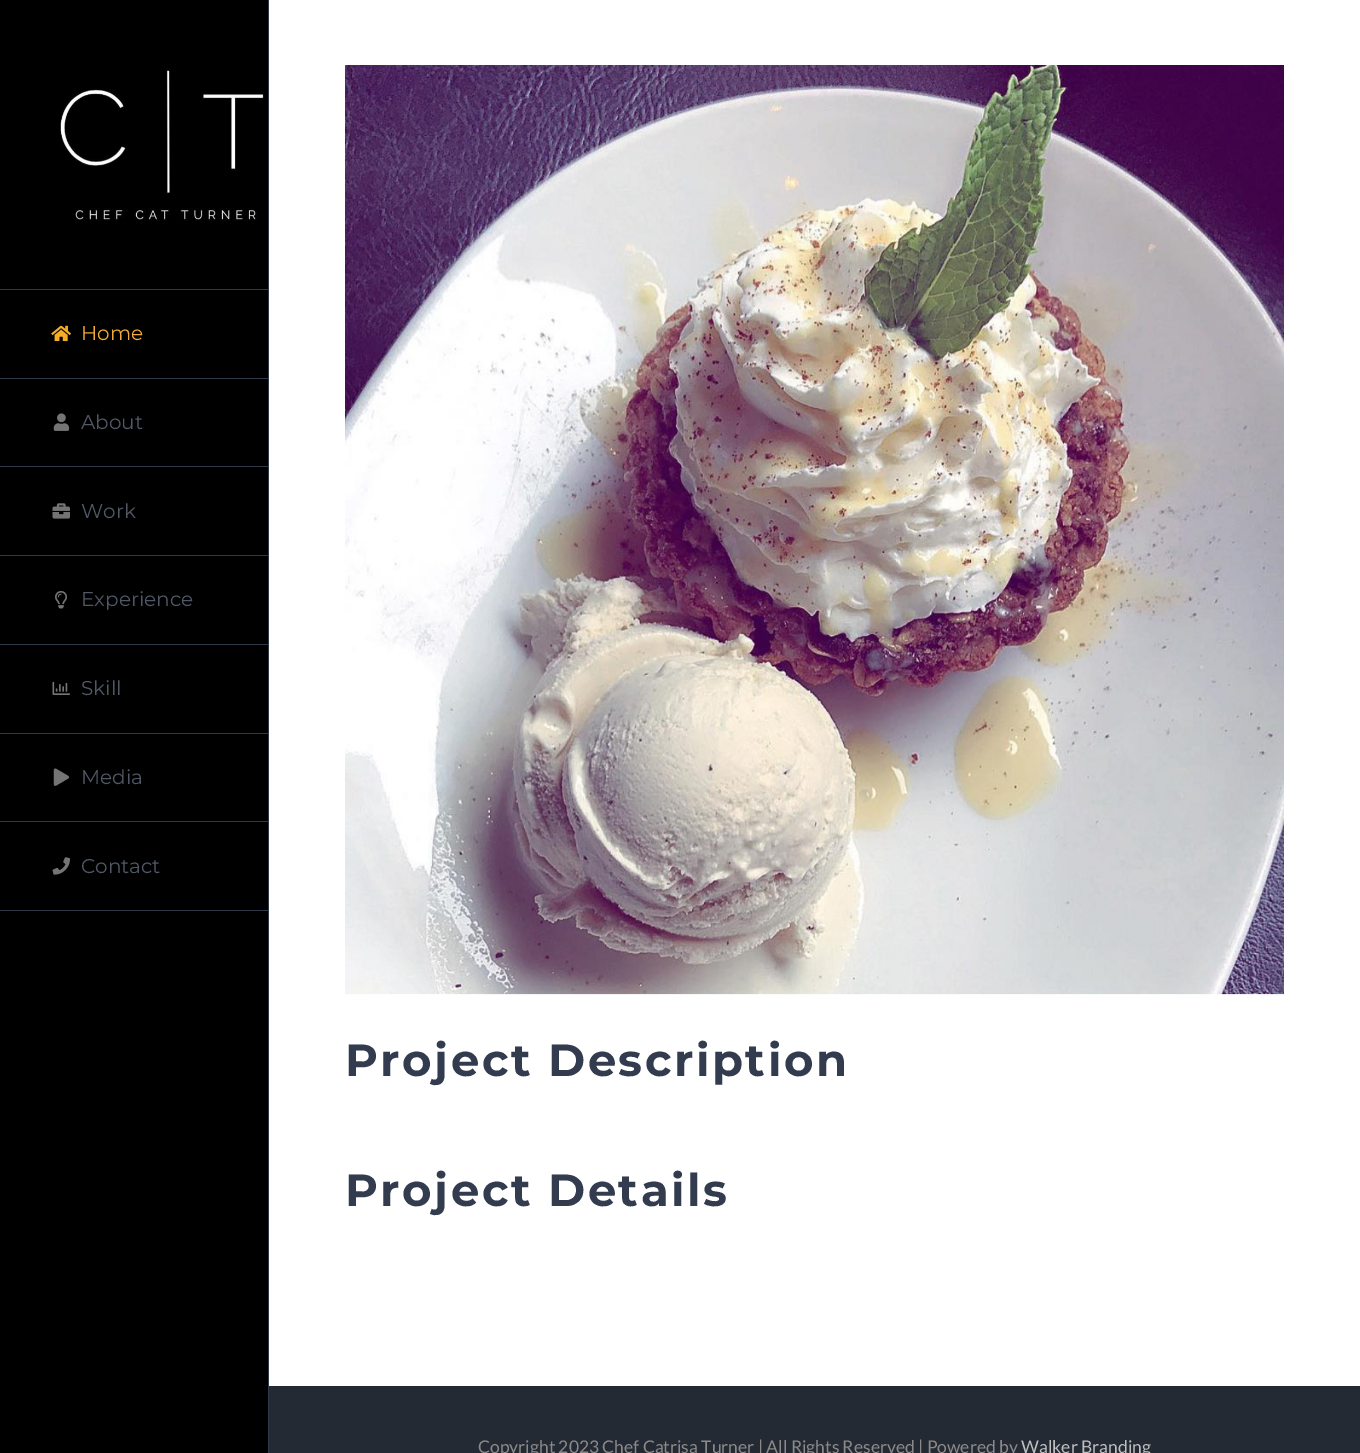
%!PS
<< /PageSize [1360 1453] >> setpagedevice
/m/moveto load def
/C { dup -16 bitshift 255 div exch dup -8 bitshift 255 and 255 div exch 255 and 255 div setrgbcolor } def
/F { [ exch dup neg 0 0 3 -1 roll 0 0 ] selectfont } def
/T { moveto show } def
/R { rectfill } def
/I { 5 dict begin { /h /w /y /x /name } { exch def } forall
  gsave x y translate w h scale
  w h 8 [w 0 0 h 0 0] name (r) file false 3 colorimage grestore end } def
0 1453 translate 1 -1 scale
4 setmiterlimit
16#FFFFFF C
0 0 1360 1453 R
16#000000 C
0 0 268 1453 R
16#303947 C
268 0 1 1453 R
(1.rgb) 60 68 204 153 I
0 289 269 1 R
0 378 269 1 R
(2.rgb) 51 325 20 17 I
/Montserrat-Regular 20 F
16#F2AB37 C
(Home) 81 340 T
16#303947 C
0 466 269 1 R
(3.rgb) 53 413 17 18 I
16#505865 C
(About) 81 429 T
16#303947 C
0 555 269 1 R
(4.rgb) 52 503 18 16 I
16#505865 C
(Work) 81 518 T
16#303947 C
0 644 269 1 R
(5.rgb) 55 591 12 18 I
16#505865 C
(Experience) 81 606 T
16#303947 C
0 733 269 1 R
(6.rgb) 52 681 18 14 I
16#505865 C
(Skill) 81 695 T
16#303947 C
0 821 269 1 R
(7.rgb) 53 768 16 18 I
16#505865 C
(Media) 81 784 T
16#303947 C
0 910 269 1 R
(8.rgb) 52 857 18 18 I
16#505865 C
(Contact) 81 873 T
(9.rgb) 345 65 939 930 I
/Montserrat-Bold 45 F
16#333C4E C
345 1076 m 2.5 0 (Project Description) ashow
345 1206 m 2.5 0 (Project Details) ashow
16#232A34 C
269 1386 1091 67 R
/Lato-Regular 17.5 F
16#8C8989 C
(Copyright 2023 Chef Catrisa Turner | All Rights Reserved | Powered by) 478 1453 T
16#BFBFBF C
(Walker Branding) 1021 1453 T
showpage
